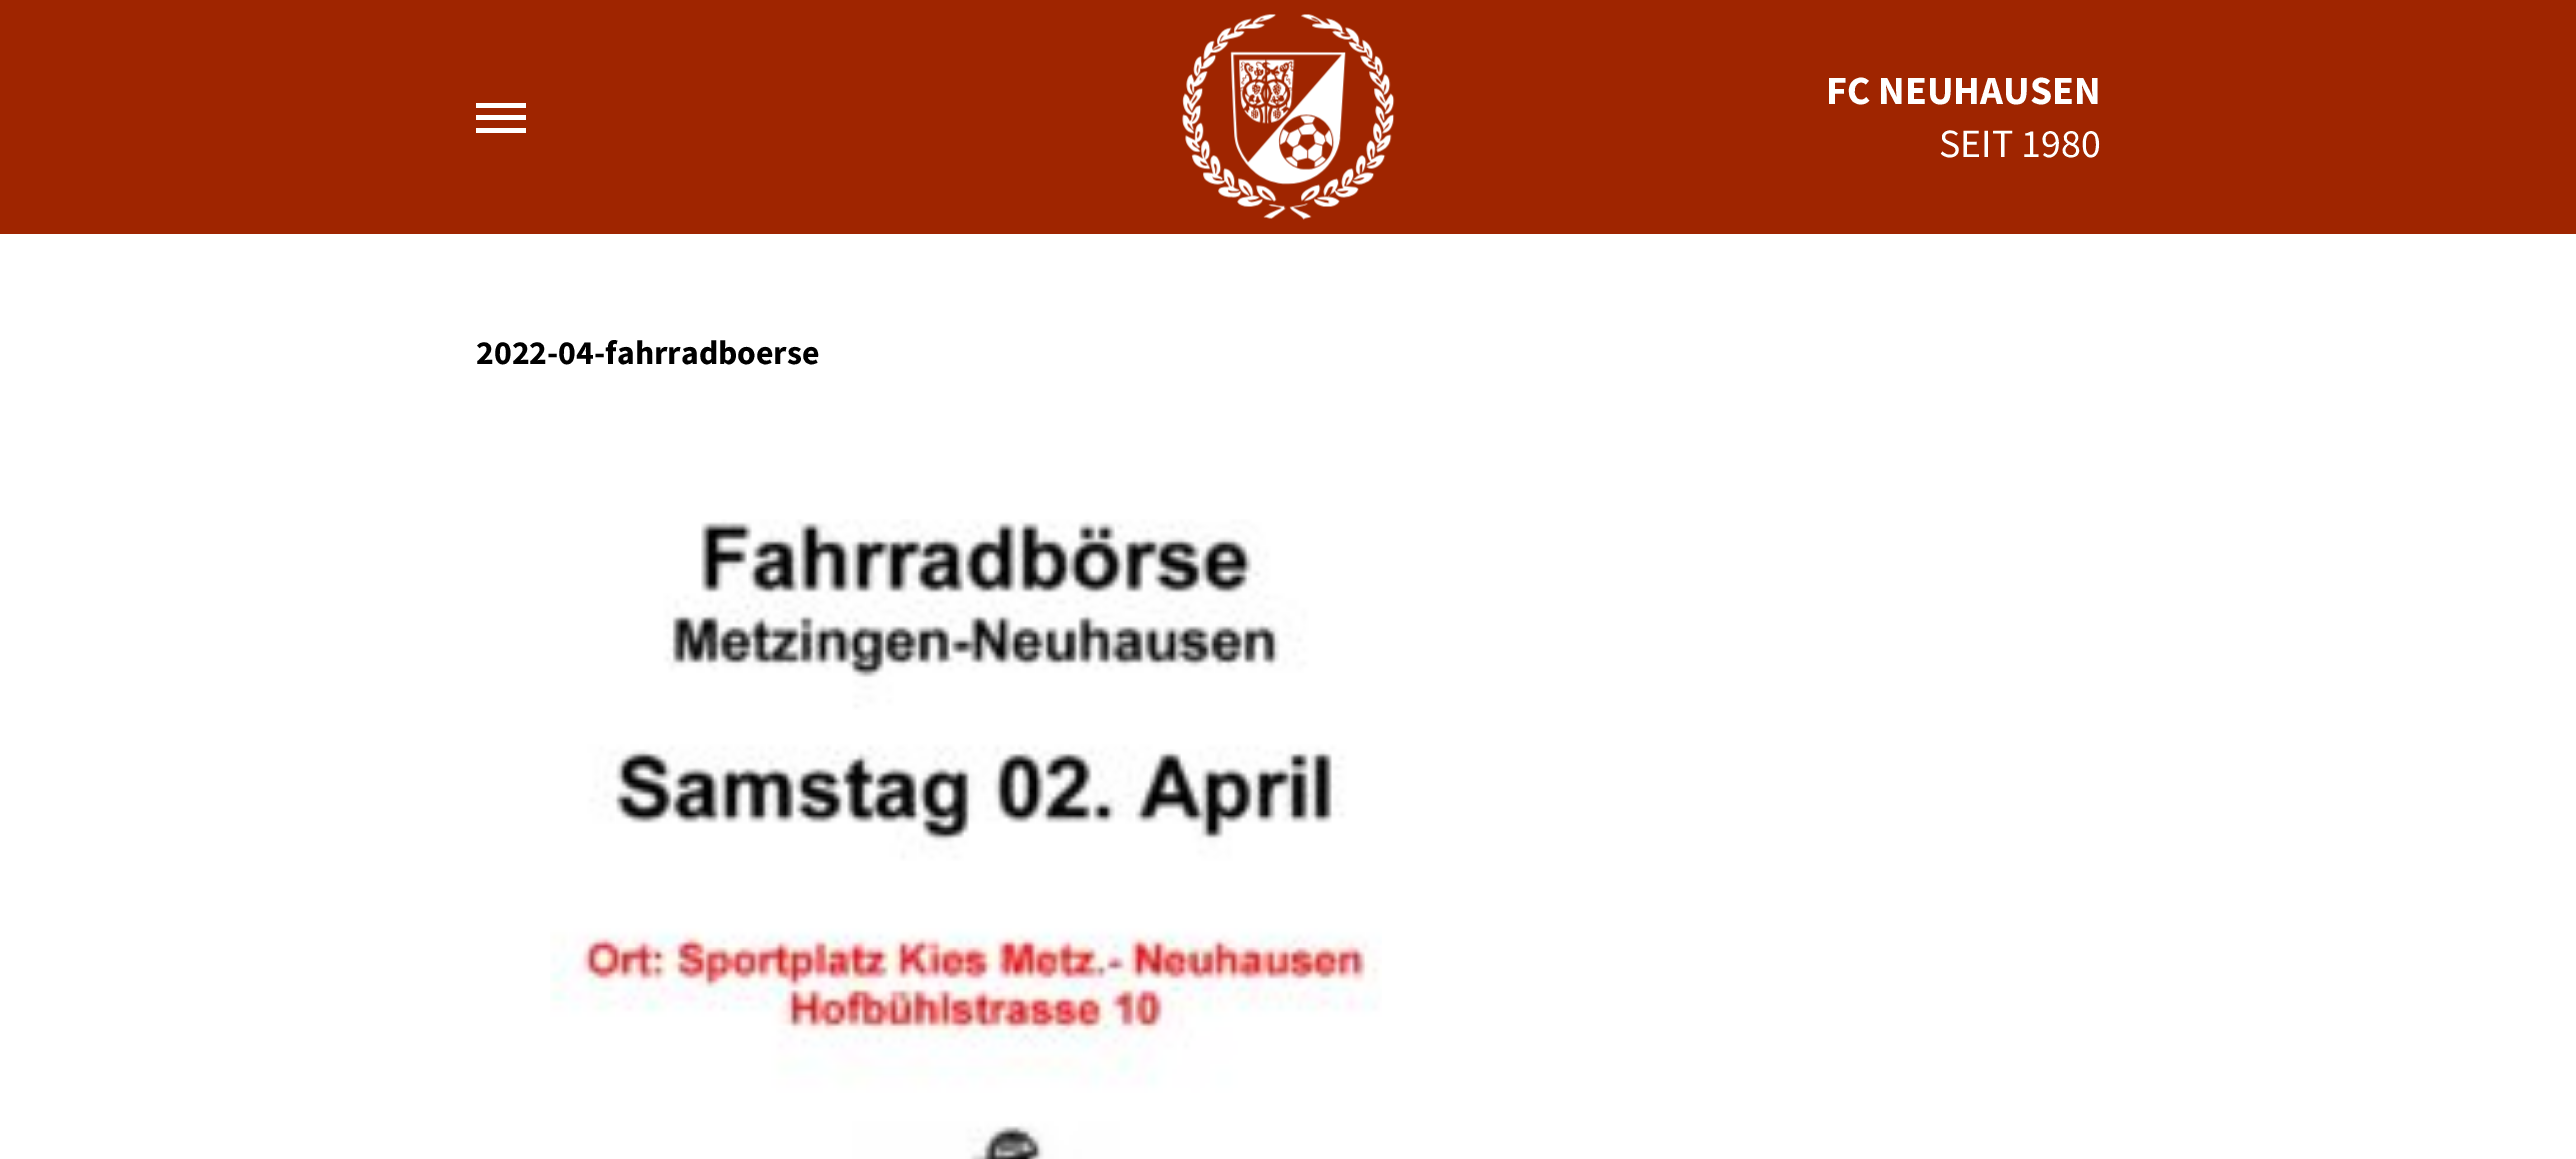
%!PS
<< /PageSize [2576 1159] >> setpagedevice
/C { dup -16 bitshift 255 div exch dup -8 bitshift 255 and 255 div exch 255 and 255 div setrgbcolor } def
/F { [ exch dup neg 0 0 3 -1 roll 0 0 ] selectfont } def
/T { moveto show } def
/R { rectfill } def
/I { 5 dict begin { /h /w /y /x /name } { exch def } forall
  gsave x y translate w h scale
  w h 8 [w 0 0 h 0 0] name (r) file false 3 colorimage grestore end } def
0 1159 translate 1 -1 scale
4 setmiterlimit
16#FFFFFF C
0 0 2576 1159 R
16#9F2500 C
0 0 2576 234 R
16#FFFFFF C
476 128 50 5 R
476 103 50 5 R
476 115 50 5 R
(1.rgb) 1182 14 213 206 I
/SourceSansPro-Bold 40 F
(FC NEUHAUSEN) 1826 104 T
/SourceSansPro-Regular 40 F
(SEIT 1980) 1939 157 T
/SourceSansPro-Bold 33.75 F
16#000000 C
(2022-04-fahrradboerse) 476 364 T
(2.rgb) 550 519 832 640 I
showpage
